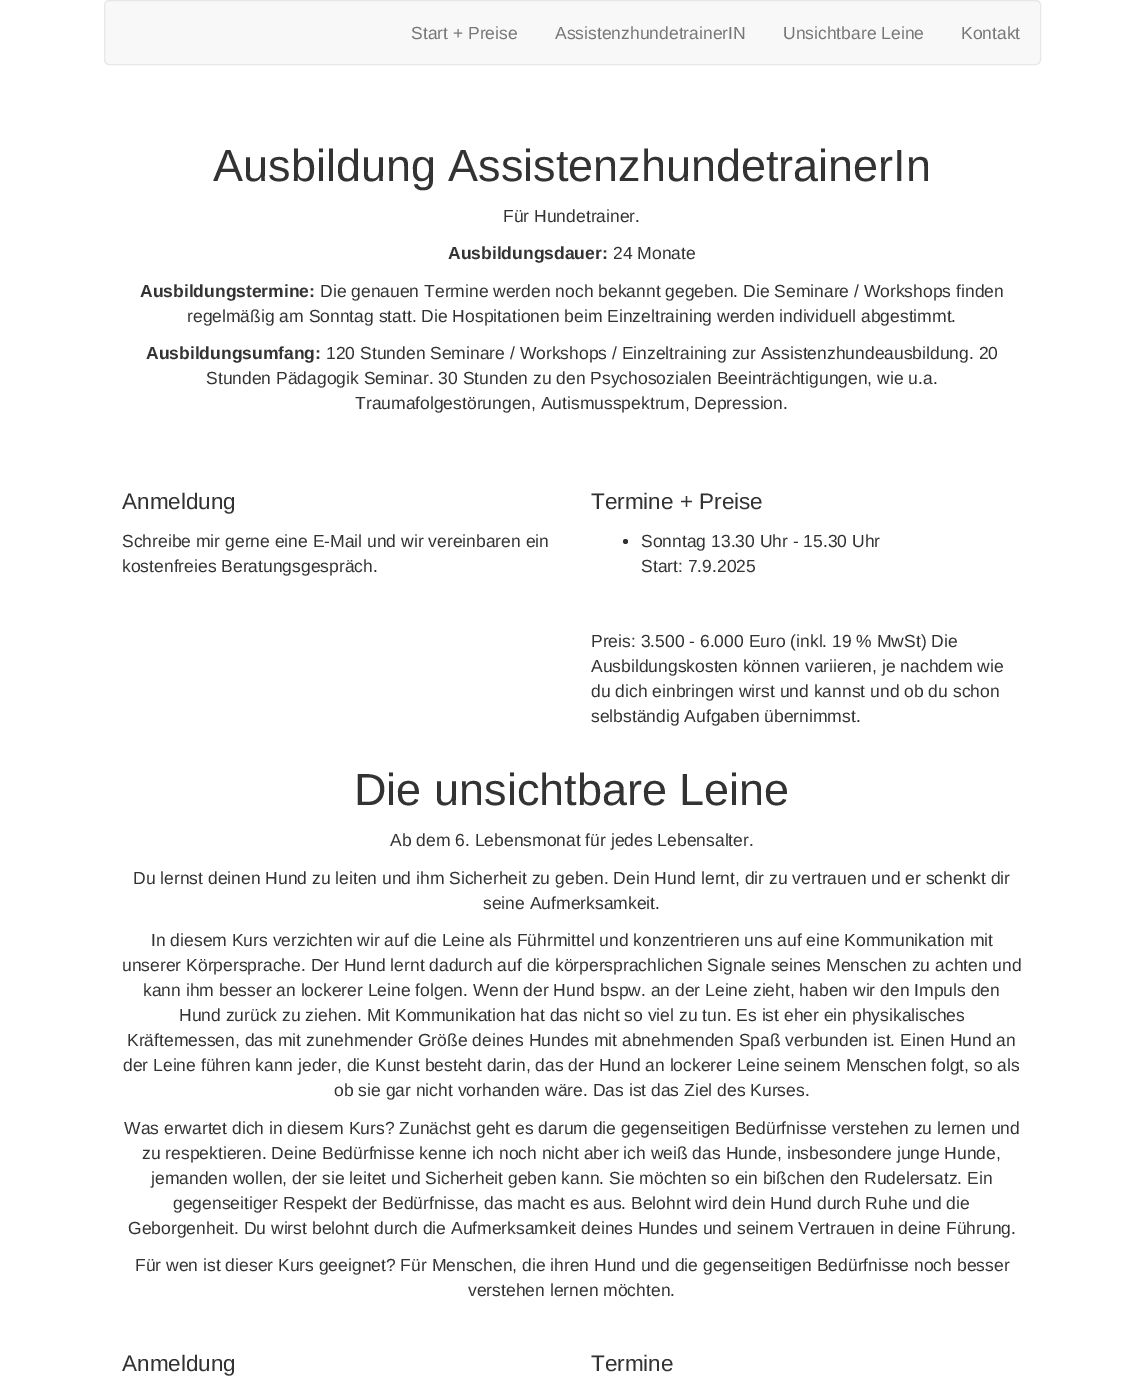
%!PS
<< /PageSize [1143 1388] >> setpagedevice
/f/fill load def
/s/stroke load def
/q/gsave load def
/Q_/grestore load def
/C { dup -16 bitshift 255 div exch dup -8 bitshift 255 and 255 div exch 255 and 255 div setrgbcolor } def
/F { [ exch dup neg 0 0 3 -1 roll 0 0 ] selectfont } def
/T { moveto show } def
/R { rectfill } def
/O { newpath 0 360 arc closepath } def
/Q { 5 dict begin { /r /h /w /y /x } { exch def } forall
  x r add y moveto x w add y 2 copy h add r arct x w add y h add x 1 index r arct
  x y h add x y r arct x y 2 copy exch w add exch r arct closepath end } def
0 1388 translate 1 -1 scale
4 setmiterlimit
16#FFFFFF C
0 0 1143 1388 R
16#F8F8F8 C
104.5 .5 936 64 4.5 Q q f Q_
16#E7E7E7 C
s
/LiberationSans-Regular 17.5 F
16#777777 C
(Start + Preise) 411 39 T
(AssistenzhundetrainerIN) 555 39 T
(Unsichtbare Leine) 783 39 T
(Kontakt) 961 39 T
/LiberationSans-Regular 45 F
16#333333 C
(Ausbildung AssistenzhundetrainerIn) 213 181 T
/LiberationSans-Regular 17.5 F
(Für Hundetrainer.) 503 222 T
/LiberationSans-Bold 17.5 F
(Ausbildungsdauer:) 448 259 T
/LiberationSans-Regular 17.5 F
(24 Monate) 613 259 T
/LiberationSans-Bold 17.5 F
(Ausbildungstermine:) 140 297 T
/LiberationSans-Regular 17.5 F
(Die genauen Termine werden noch bekannt gegeben. Die Seminare / Workshops finden) 320 297 T
(regelmäßig am Sonntag statt. Die Hospitationen beim Einzeltraining werden individuell abgestimmt.) 187 322 T
/LiberationSans-Bold 17.5 F
(Ausbildungsumfang:) 146 359 T
/LiberationSans-Regular 17.5 F
(120 Stunden Seminare / Workshops / Einzeltraining zur Assistenzhundeausbildung. 20) 326 359 T
(Stunden Pädagogik Seminar. 30 Stunden zu den Psychosozialen Beeinträchtigungen, wie u.a.) 206 384 T
(Traumafolgestörungen, Autismusspektrum, Depression.) 355 409 T
/LiberationSans-Regular 22.5 F
(Anmeldung) 122 509 T
/LiberationSans-Regular 17.5 F
(Schreibe mir gerne eine E-Mail und wir vereinbaren ein) 122 547 T
(kostenfreies Beratungsgespräch.) 122 572 T
/LiberationSans-Regular 22.5 F
(Termine + Preise) 591 509 T
625.5 541.5 2.5 O f
/LiberationSans-Regular 17.5 F
(Sonntag 13.30 Uhr - 15.30 Uhr) 641 547 T
(Start: 7.9.2025) 641 572 T
(Preis: 3.500 - 6.000 Euro \(inkl. 19 % MwSt\) Die) 591 647 T
(Ausbildungskosten können variieren, je nachdem wie) 591 672 T
(du dich einbringen wirst und kannst und ob du schon) 591 697 T
(selbständig Aufgaben übernimmst.) 591 722 T
/LiberationSans-Regular 45 F
(Die unsichtbare Leine) 354 805 T
/LiberationSans-Regular 17.5 F
(Ab dem 6. Lebensmonat für jedes Lebensalter.) 390 846 T
(Du lernst deinen Hund zu leiten und ihm Sicherheit zu geben. Dein Hund lernt, dir zu vertrauen und er schenkt dir) 133 884 T
(seine Aufmerksamkeit.) 483 909 T
(In diesem Kurs verzichten wir auf die Leine als Führmittel und konzentrieren uns auf eine Kommunikation mit) 151 946 T
(unserer Körpersprache. Der Hund lernt dadurch auf die körpersprachlichen Signale seines Menschen zu achten und) 122 971 T
(kann ihm besser an lockerer Leine folgen. Wenn der Hund bspw. an der Leine zieht, haben wir den Impuls den) 143 996 T
(Hund zurück zu ziehen. Mit Kommunikation hat das nicht so viel zu tun. Es ist eher ein physikalisches) 179 1021 T
(Kräftemessen, das mit zunehmender Größe deines Hundes mit abnehmenden Spaß verbunden ist. Einen Hund an) 127 1046 T
(der Leine führen kann jeder, die Kunst besteht darin, das der Hund an lockerer Leine seinem Menschen folgt, so als) 123 1071 T
(ob sie gar nicht vorhanden wäre. Das ist das Ziel des Kurses.) 334 1096 T
(Was erwartet dich in diesem Kurs? Zunächst geht es darum die gegenseitigen Bedürfnisse verstehen zu lernen und) 124 1134 T
(zu respektieren. Deine Bedürfnisse kenne ich noch nicht aber ich weiß das Hunde, insbesondere junge Hunde,) 142 1159 T
(jemanden wollen, der sie leitet und Sicherheit geben kann. Sie möchten so ein bißchen den Rudelersatz. Ein) 151 1184 T
(gegenseitiger Respekt der Bedürfnisse, das macht es aus. Belohnt wird dein Hund durch Ruhe und die) 173 1209 T
(Geborgenheit. Du wirst belohnt durch die Aufmerksamkeit deines Hundes und seinem Vertrauen in deine Führung.) 128 1234 T
(Für wen ist dieser Kurs geeignet? Für Menschen, die ihren Hund und die gegenseitigen Bedürfnisse noch besser) 135 1271 T
(verstehen lernen möchten.) 468 1296 T
/LiberationSans-Regular 22.5 F
(Anmeldung) 122 1371 T
(Termine) 591 1371 T
showpage
